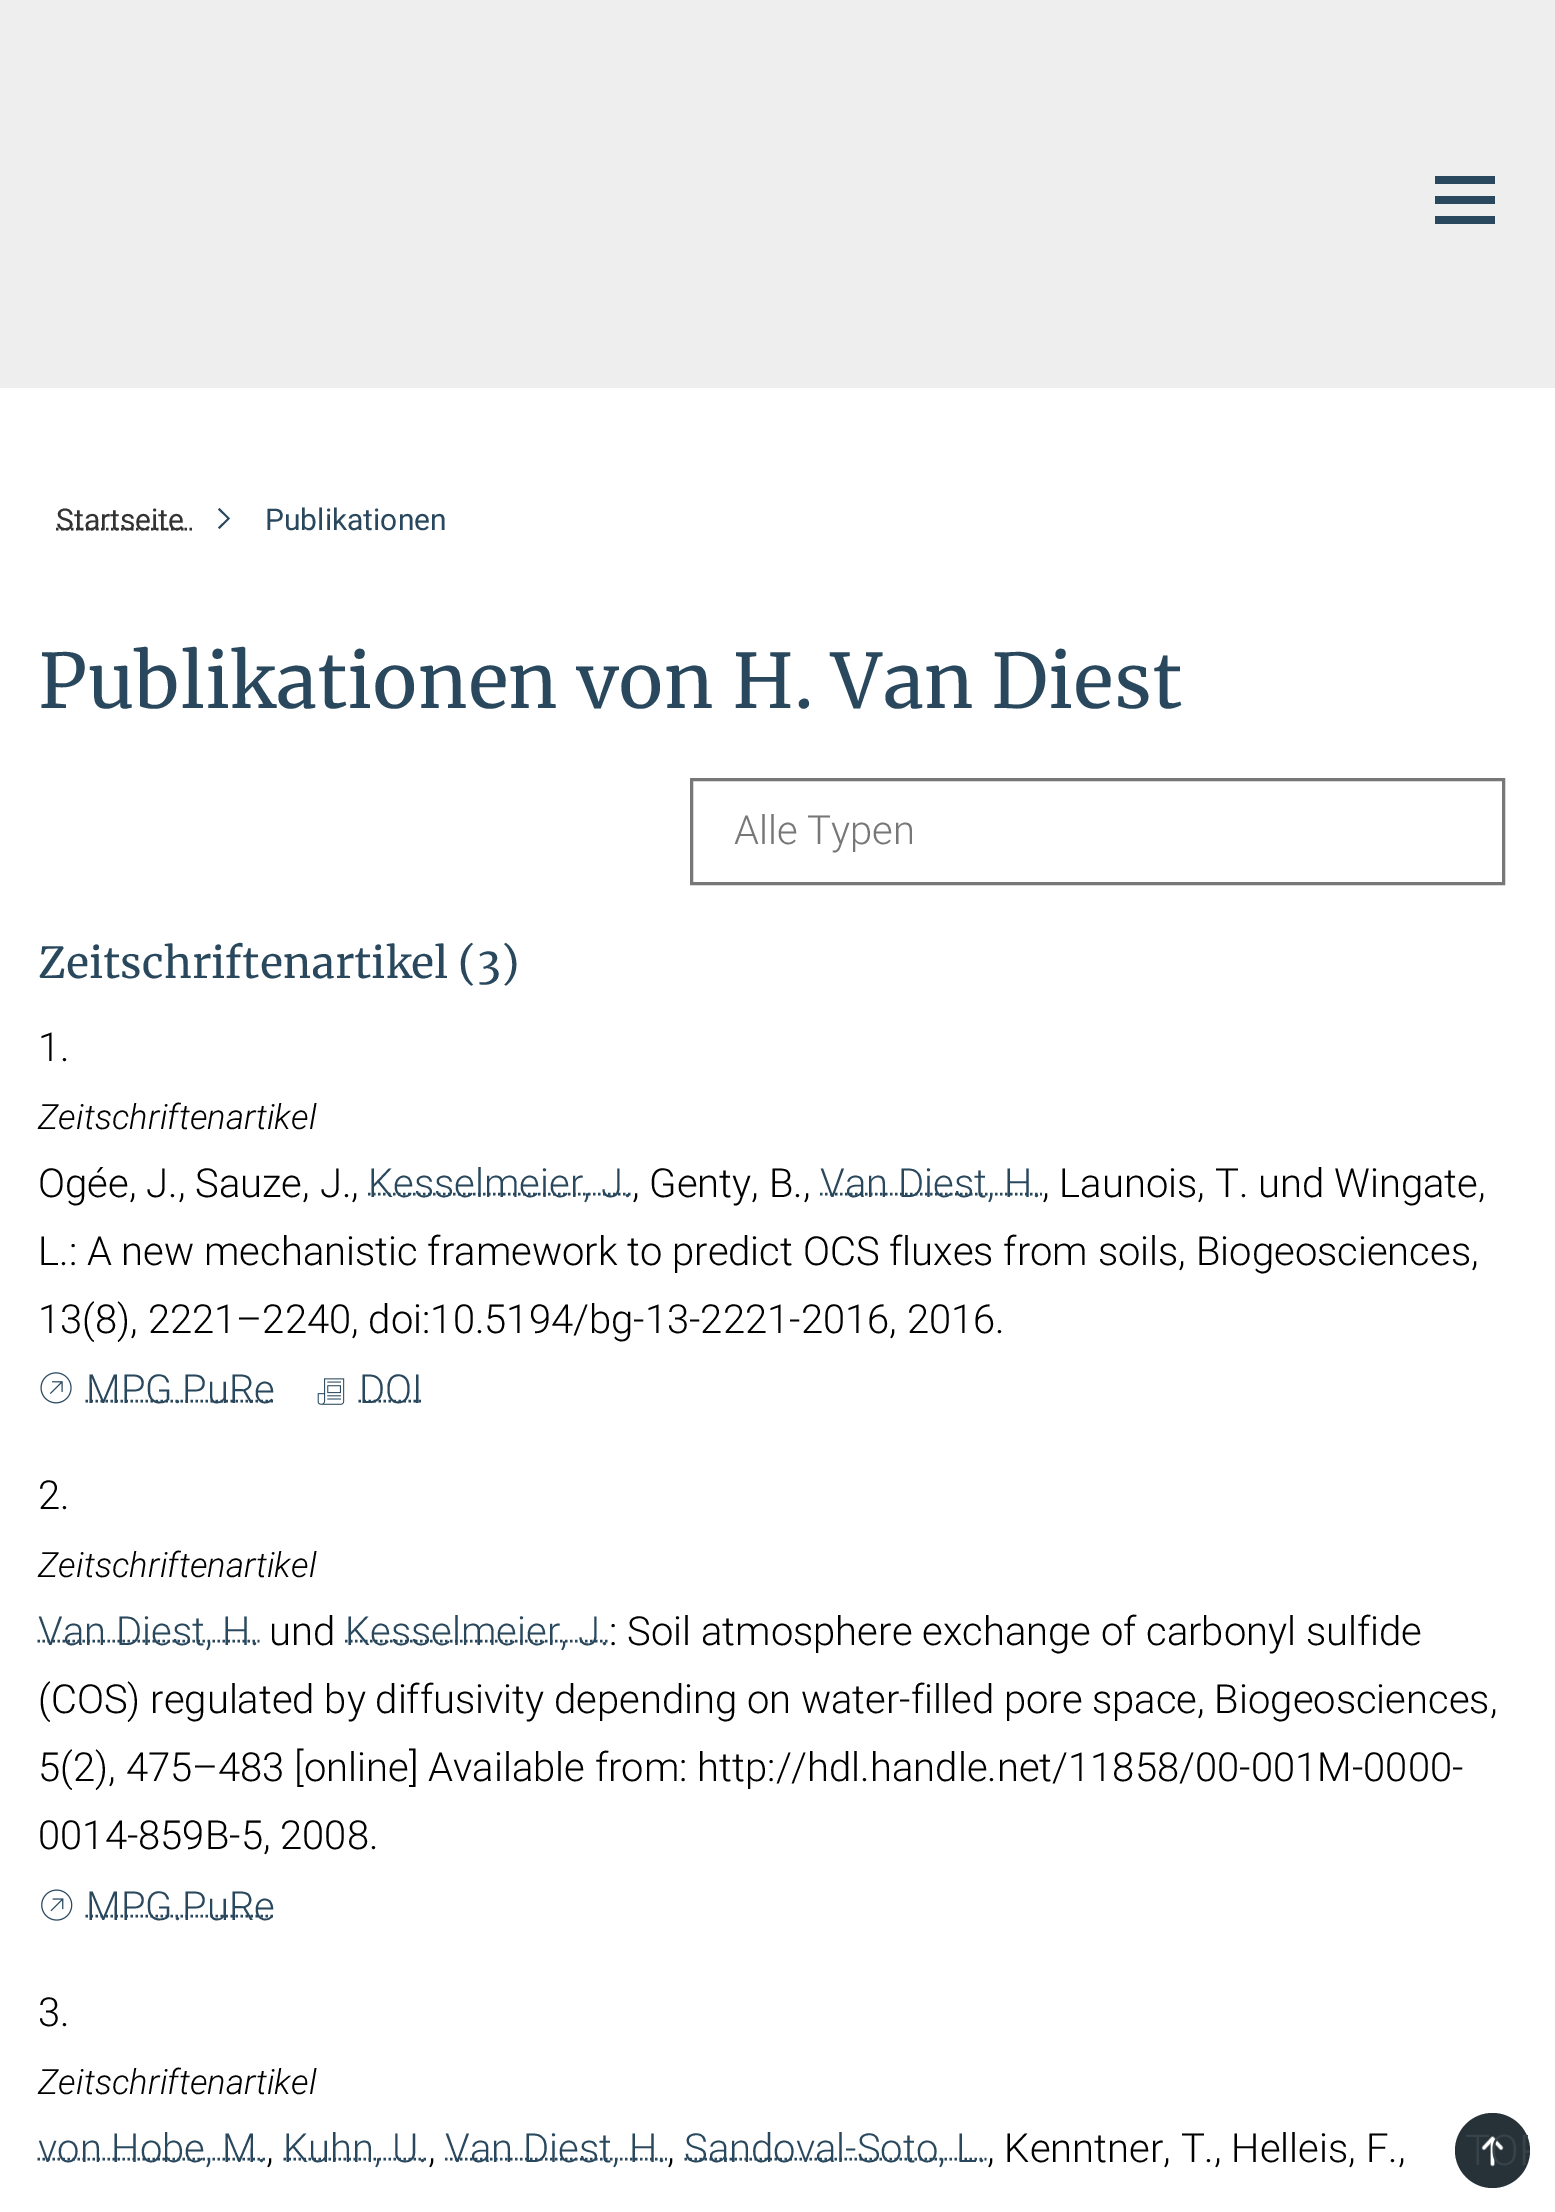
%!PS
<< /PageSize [1555 2212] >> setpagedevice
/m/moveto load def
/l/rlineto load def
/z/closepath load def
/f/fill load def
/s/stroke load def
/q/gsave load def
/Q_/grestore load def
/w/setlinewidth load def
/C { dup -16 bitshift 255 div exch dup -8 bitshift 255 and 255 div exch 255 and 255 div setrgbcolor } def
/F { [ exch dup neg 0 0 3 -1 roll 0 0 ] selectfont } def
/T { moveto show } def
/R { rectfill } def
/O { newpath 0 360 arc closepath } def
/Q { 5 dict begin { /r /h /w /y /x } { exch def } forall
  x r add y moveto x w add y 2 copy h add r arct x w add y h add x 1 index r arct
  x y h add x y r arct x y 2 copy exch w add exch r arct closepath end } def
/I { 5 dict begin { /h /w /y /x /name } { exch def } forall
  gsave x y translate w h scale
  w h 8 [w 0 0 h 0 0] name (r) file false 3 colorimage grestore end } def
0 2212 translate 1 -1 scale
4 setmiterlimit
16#FFFFFF C
0 0 1555 2212 R
16#EEEEEE C
0 0 1555 388 R
16#29485D C
1435 176 60 8 R
1435 196 60 8 R
1435 216 60 8 R
16#333333 C
2.5 w
[2.5 2.5] 0 setdash
56 529 m 128.5 0 l s
/Roboto-Regular 30 F
(Startseite) 56 530 T
[] 0 setdash
184.5 529 m 2.5 0 l 189.5 529 m 2.5 0 l s
16#29485D C
(Publikationen) 265 530 T
218 527.5 m 9.5 -9 l -9.5 -9 l 1.5 -1.5 l 10.5 10.5 l -10.5 10.5 l z f
/Merriweather-Regular 75 F
(Publikationen von H. Van Diest) 38 708 T
16#777777 C
3 w
691.5 779.5 812 104 rectstroke
/Roboto-Light 40 F
(Alle Typen) 734 844 T
/Merriweather-Regular 42.5 F
16#29485D C
(Zeitschriftenartikel \(3\)) 38 978 T
/Roboto-Light 40 F
16#000000 C
(1.) 38 1061 T
/Roboto-LightItalic 34.75 F
(Zeitschriftenartikel) 38 1129 T
/Roboto-Light 40 F
(Ogée, J., Sauze, J.,) 38 1197 T
16#29485D C
2.5 w
[2.5 2.5] 0 setdash
368 1194 m 264 0 l s
(Kesselmeier, J.) 368 1197 T
16#000000 C
(, Genty, B.,) 632 1197 T
16#29485D C
820 1194 m 222 0 l s
(Van Diest, H.) 820 1197 T
16#000000 C
(, Launois, T. und Wingate,) 1042 1197 T
(L.: A new mechanistic framework to predict OCS fluxes from soils, Biogeosciences,) 38 1265 T
(13\(8\), 2221–2240, doi:10.5194/bg-13-2221-2016, 2016.) 38 1333 T
(1.rgb) 40 1372 32 32 I
16#29485D C
85.5 1401 m 189 0 l s
(MPG.PuRe) 86 1403 T
(2.rgb) 317 1378 28 27 I
358.5 1401 m 64 0 l s
(DOI) 359 1403 T
16#000000 C
(2.) 38 1509 T
/Roboto-LightItalic 34.75 F
(Zeitschriftenartikel) 38 1577 T
16#29485D C
37.5 1641 m 222 0 l s
/Roboto-Light 40 F
(Van Diest, H.) 38 1645 T
16#000000 C
(und) 269 1645 T
16#29485D C
345 1641 m 264.5 0 l s
(Kesselmeier, J.) 345 1645 T
16#000000 C
(: Soil atmosphere exchange of carbonyl sulfide) 609 1645 T
(\(COS\) regulated by diffusivity depending on water-filled pore space, Biogeosciences,) 38 1713 T
(5\(2\), 475–483 [online] Available from: http://hdl.handle.net/11858/00-001M-0000-) 38 1781 T
(0014-859B-5, 2008.) 38 1849 T
(3.rgb) 41 1889 32 32 I
16#29485D C
85.5 1916 m 189 0 l s
(MPG.PuRe) 86 1920 T
16#000000 C
(3.) 38 2026 T
/Roboto-LightItalic 34.75 F
(Zeitschriftenartikel) 38 2094 T
16#29485D C
37.5 2159 m 228.5 0 l s
/Roboto-Light 40 F
(von Hobe, M.) 38 2162 T
16#000000 C
(,) 266 2162 T
16#29485D C
283.5 2159 m 144 0 l s
(Kuhn, U.) 283 2162 T
16#000000 C
(,) 428 2162 T
16#29485D C
445 2159 m 222 0 l s
(Van Diest, H.) 445 2162 T
16#000000 C
(,) 667 2162 T
16#29485D C
684.5 2159 m 302 0 l s
(Sandoval-Soto, L.) 684 2162 T
16#000000 C
(, Kenntner, T., Helleis, F.,) 987 2162 T
16#263238 C
1492.5 2150.5 37.5 O f
(4.rgb) 1481 2136 23 31 I
q
1455 2113 75 75 37.5 Q clip newpath
/Roboto-Light 42.5 F
16#384349 C
(TOP) 1465 2165 T
Q_
showpage
